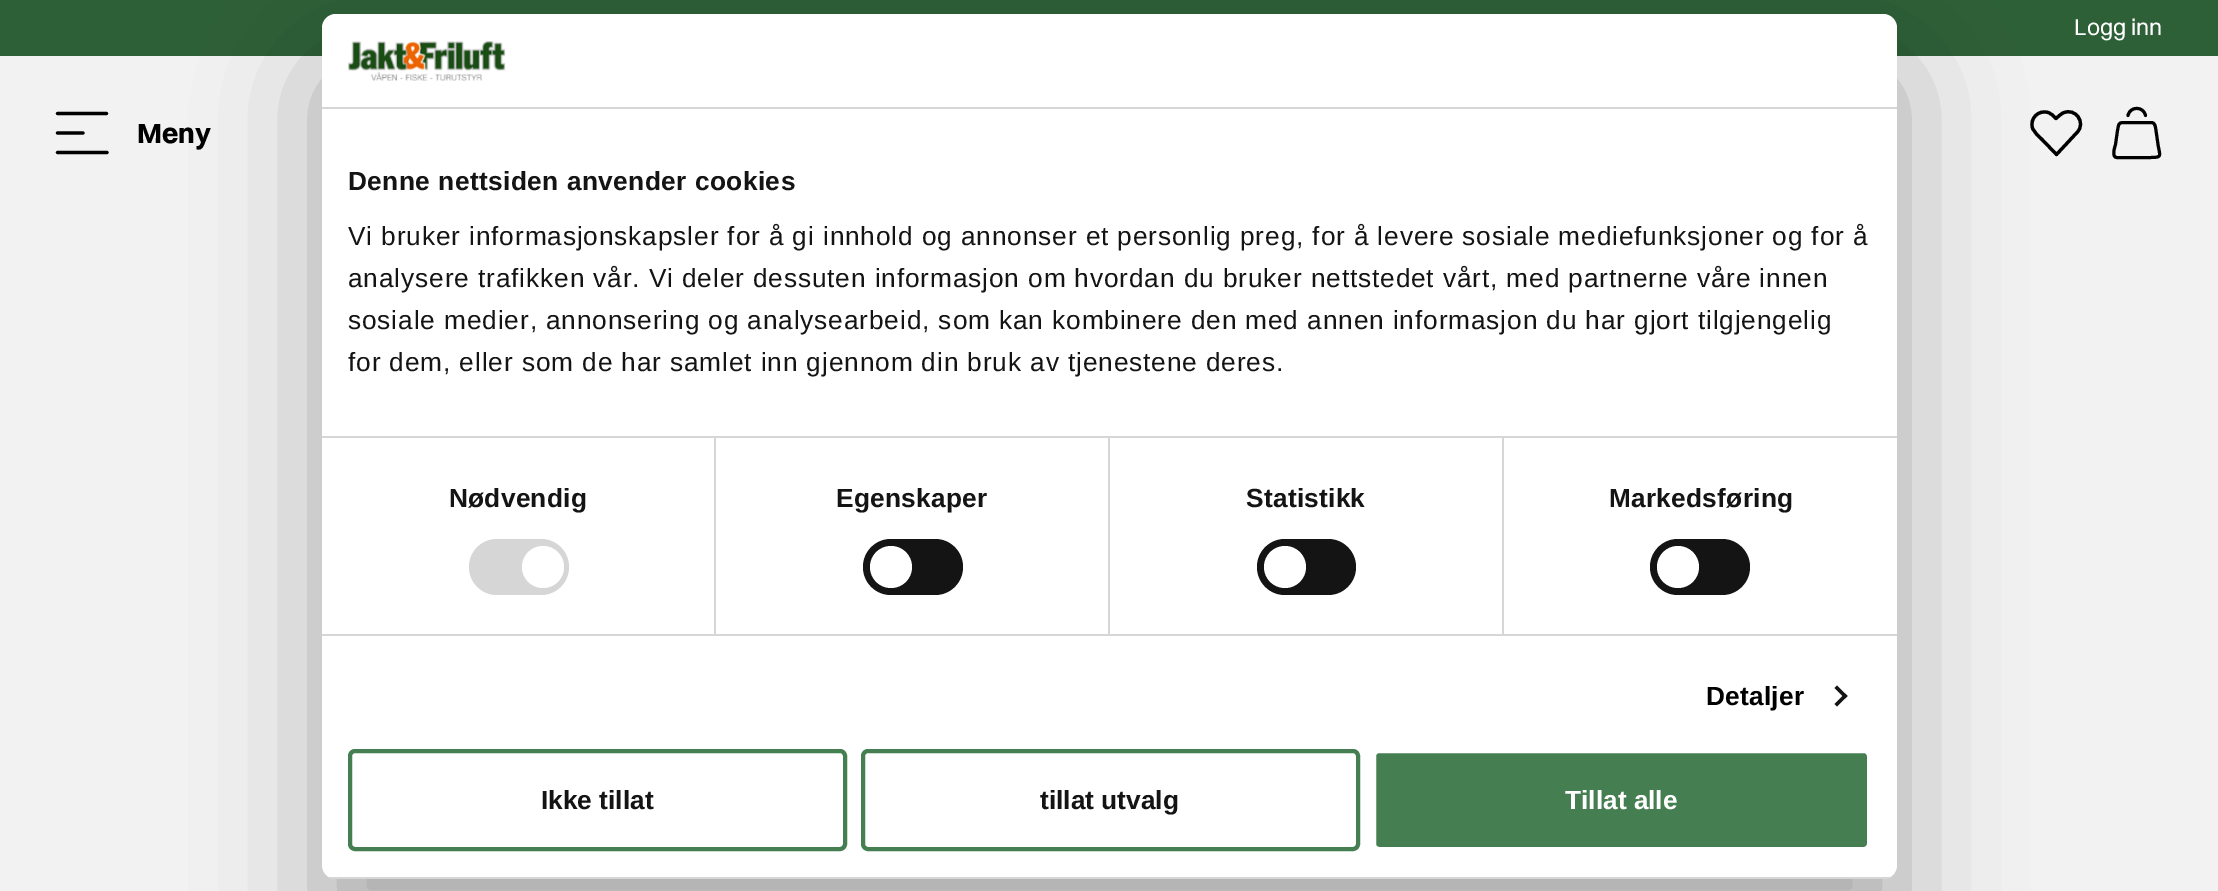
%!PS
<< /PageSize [2218 891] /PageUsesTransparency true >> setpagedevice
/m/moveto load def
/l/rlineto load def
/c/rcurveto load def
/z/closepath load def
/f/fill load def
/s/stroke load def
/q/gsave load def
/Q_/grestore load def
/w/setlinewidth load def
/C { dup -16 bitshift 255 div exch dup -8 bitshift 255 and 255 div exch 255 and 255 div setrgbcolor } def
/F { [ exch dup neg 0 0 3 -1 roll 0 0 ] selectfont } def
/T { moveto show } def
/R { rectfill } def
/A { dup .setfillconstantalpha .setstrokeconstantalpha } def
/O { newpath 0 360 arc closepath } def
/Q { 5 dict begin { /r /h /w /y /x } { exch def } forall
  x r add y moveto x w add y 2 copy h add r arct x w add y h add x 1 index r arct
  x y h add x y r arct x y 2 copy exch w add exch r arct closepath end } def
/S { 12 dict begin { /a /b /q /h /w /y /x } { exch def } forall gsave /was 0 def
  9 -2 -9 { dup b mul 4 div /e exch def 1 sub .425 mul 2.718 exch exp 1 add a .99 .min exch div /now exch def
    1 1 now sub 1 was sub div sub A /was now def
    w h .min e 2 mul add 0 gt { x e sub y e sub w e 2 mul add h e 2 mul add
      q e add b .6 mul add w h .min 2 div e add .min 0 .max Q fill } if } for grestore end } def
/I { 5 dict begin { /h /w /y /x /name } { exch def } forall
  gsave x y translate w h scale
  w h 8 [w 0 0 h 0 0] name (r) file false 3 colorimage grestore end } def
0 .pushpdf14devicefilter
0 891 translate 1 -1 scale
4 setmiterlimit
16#F2F2F2 C
0 0 2218 891 R
16#2E6037 C
0 0 2218 56 R
/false-Regular 23 F
16#FFFFFF C
(Logg inn) 2074 35 T
16#000000 C
3.2 w
1 setlinecap
57.5 113.5 m 49 0 l 57.5 133 m 25.5 0 l 57.5 152.5 m 49.5 0 l s
/false-Bold 28 F
(Meny) 137 143 T
1 setlinejoin
2056.5 154.5 m -14 -14.5 l -3.5 -3.5 -8.5 -7.5 -10 -12 c -3 -9.5 6 -18.5 15.5 -15.5 c 3.5 1 5.5 3.5 8 6 c 2.5 -2 4.5 -4.5 7 -5.5 c 12.5 -6 23.5 10 14 19.5 c z s
3 w
2151.5 122.5 m -24.5 0 l -8.5 0 -8 0 -9.5 8 c -2 14 l -.5 2 -4.5 13 1.5 13 c 33 0 l 12.5 0 10 -1 8 -13 c -2 -14 l -.5 -2.5 -.5 -8 -4.5 -8 c z 2145.5 115.5 m -2 -9.5 -15.5 -9.5 -17.5 0 c s
322 70 1575 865 14 59.5 .3 S
16#FFFFFF C
322 14 1575 865 14 Q f
16#D6D6D6 C
322 107 1575 2 R
(1.rgb) 348 41 158 40 I
322 436 1575 2 R
/LiberationSans-Bold 26.25 F
16#141414 C
348 190 m .45 0 (Denne nettsiden anvender cookies) ashow
/LiberationSans-Regular 26.25 F
348 245 m .88 0 (Vi bruker informasjonskapsler for å gi innhold og annonser et personlig preg, for å levere sosiale mediefunksjoner og for å) ashow
348 287 m .88 0 (analysere trafikken vår. Vi deler dessuten informasjon om hvordan du bruker nettstedet vårt, med partnerne våre innen) ashow
348 329 m .88 0 (sosiale medier, annonsering og analysearbeid, som kan kombinere den med annen informasjon du har gjort tilgjengelig) ashow
348 371 m .88 0 (for dem, eller som de har samlet inn gjennom din bruk av tjenestene deres.) ashow
16#D6D6D6 C
322 634 1575 2 R
714 438 2 196 R
/LiberationSans-Bold 26.25 F
16#141414 C
449 507 m .25 0 (Nødvendig) ashow
16#D6D6D6 C
469 539 100 56 28 Q f
16#FFFFFF C
543 567 21 O f
16#D6D6D6 C
1108 438 2 196 R
16#141414 C
836 507 m .25 0 (Egenskaper) ashow
863 539 100 56 28 Q f
16#FFFFFF C
891 567 21 O f
16#D6D6D6 C
1502 438 2 196 R
16#141414 C
1246 507 m .25 0 (Statistikk) ashow
1257 539 99 56 28 Q f
16#FFFFFF C
1285 567 21 O f
16#141414 C
1609 507 m .25 0 (Markedsføring) ashow
1650 539 100 56 28 Q f
16#FFFFFF C
1678 567 21 O f
16#000000 C
1706 705 m .25 0 (Detaljer) ashow
16#141414 C
1837 685.5 m 10.5 10.5 l -2.5 2.5 l -10.5 -10.5 l z f
1845 693.5 m 2.5 2.5 l -10.5 10.5 l -2.5 -2.5 l z f
q
322 14 1575 865 14 Q clip newpath
16#D6D6D6 C
322 877 1575 2 R
Q_
16#457E50 C
4 w
0 setlinecap
0 setlinejoin
350 751 495 98 5 Q s
16#141414 C
(Ikke tillat) 541 809 T
16#457E50 C
863 751 495 98 5 Q s
16#141414 C
(tillat utvalg) 1040 809 T
16#457E50 C
1374 751 495 98 5 Q q f Q_
16#FFFFFF C
s
(Tillat alle) 1565 809 T
.poppdf14devicefilter showpage
